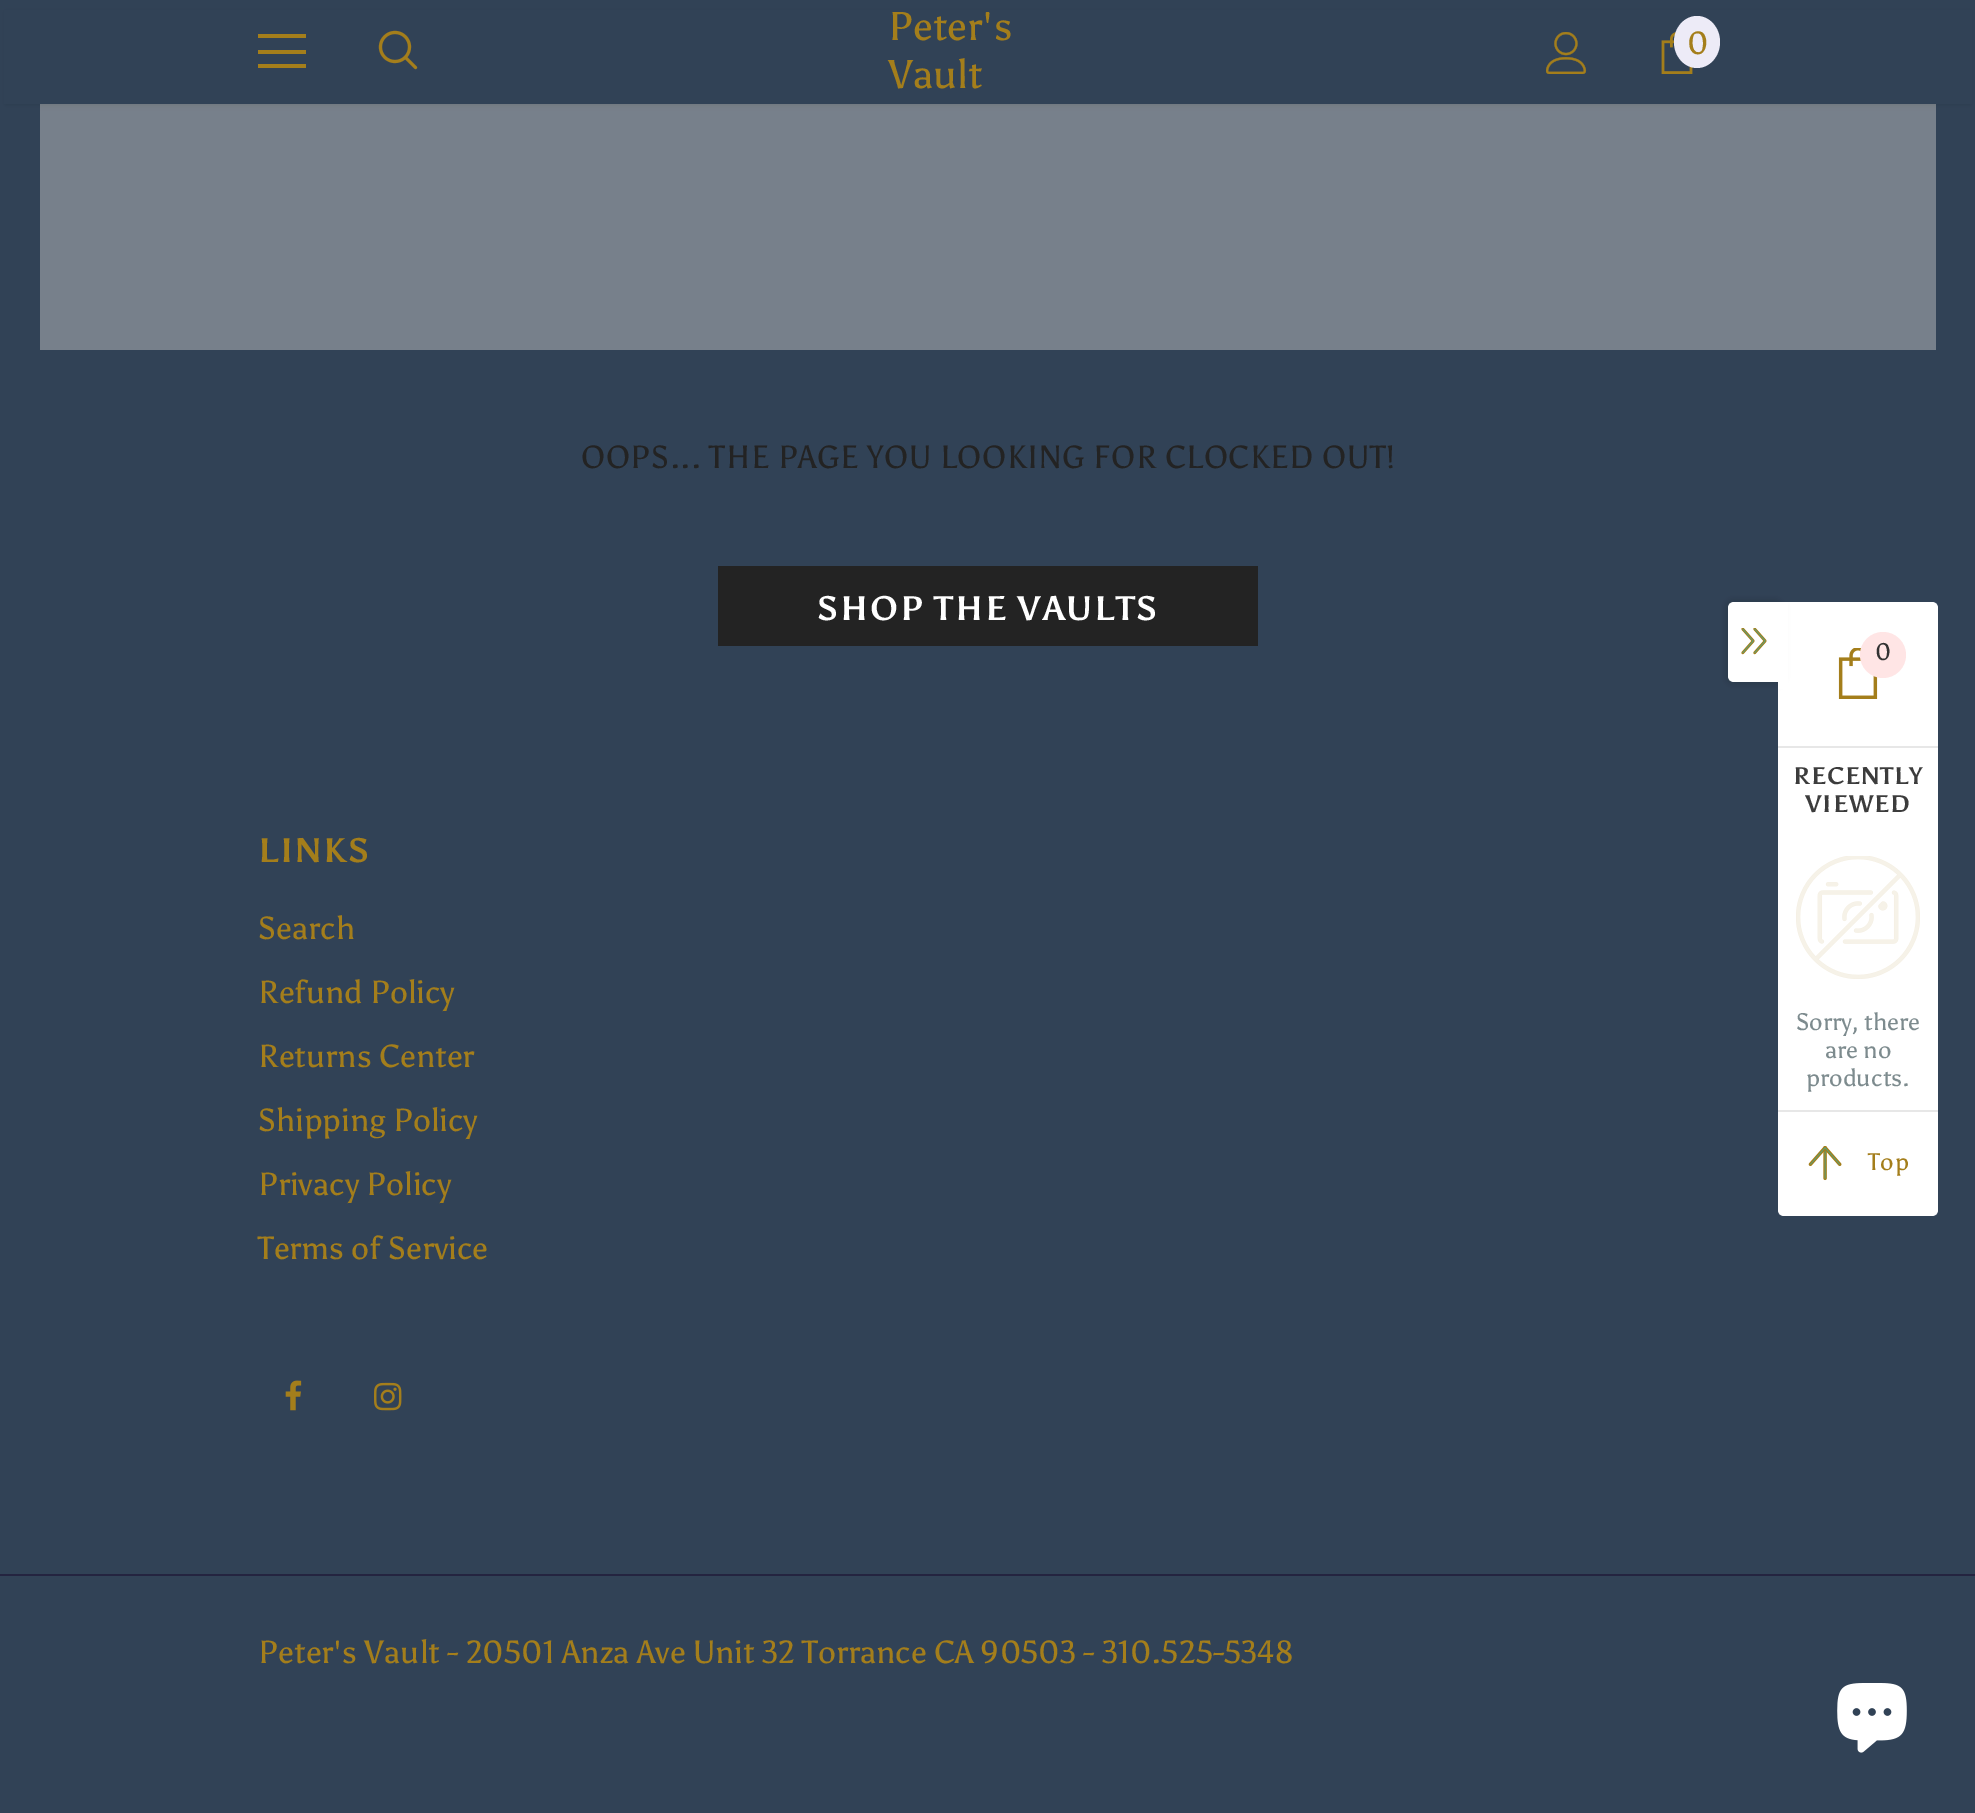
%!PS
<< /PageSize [1975 1813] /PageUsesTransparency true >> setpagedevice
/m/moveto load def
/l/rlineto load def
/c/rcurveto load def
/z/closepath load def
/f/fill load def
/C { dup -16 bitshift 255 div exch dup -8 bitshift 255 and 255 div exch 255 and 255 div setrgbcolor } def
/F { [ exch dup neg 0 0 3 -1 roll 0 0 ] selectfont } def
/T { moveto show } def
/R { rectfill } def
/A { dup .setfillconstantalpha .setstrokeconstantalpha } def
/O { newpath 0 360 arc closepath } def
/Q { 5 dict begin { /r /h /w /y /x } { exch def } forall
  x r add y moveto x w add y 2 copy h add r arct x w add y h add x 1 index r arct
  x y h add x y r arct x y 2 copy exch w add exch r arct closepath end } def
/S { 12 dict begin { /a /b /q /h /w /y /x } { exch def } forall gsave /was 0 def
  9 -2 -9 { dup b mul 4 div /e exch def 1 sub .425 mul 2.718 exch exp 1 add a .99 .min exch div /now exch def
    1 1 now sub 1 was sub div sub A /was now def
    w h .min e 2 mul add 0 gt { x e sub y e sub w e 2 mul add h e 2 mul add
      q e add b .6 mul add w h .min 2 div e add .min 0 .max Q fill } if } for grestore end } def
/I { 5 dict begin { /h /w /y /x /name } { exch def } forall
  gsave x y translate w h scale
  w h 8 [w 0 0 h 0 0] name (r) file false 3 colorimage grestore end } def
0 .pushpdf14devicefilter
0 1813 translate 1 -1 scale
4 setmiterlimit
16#314256 C
0 0 1975 1813 R
16#77808B C
40 104 1896 246 R
16#000000 C
6 12 1964 92 0 3 .12 S
16#314256 C
4 10 1968 94 R
16#A47E1B C
258 34 48 4 R
258 50 48 4 R
258 64 48 4 R
(1.rgb) 378 30 40 40 I
/Asul-Regular 40 F
(Peter's) 888 40 T
(Vault) 888 88 T
(2.rgb) 1546 32 41 42 I
(3.rgb) 1661 32 32 42 I
16#EDEBF7 C
1697 16 m 12.5 0 23 11.5 23 26 c 0 14.5 -10.5 26 -23 26 c -12.5 0 -23 -11.5 -23 -26 c 0 -14.5 10.5 -26 23 -26 c z f
/Asul-Regular 32 F
16#A47E1B C
(0) 1687 54 T
16#232323 C
581 468 m .65 0 (OOPS... THE PAGE YOU LOOKING FOR CLOCKED OUT!) ashow
718 566 540 80 R
/Asul-Bold 34 F
16#FFFFFF C
817 620 m 1.75 0 (SHOP THE VAULTS) ashow
16#A47E1B C
258 862 m 1.75 0 (LINKS) ashow
/Asul-Regular 32 F
(Search) 258 939 T
(Refund Policy) 258 1003 T
(Returns Center) 258 1067 T
(Shipping Policy) 258 1131 T
(Privacy Policy) 258 1195 T
(Terms of Service) 258 1259 T
(4.rgb) 285 1380 17 31 I
(5.rgb) 374 1382 28 29 I
16#242440 C
0 1574 1975 2 R
16#A47E1B C
(Peter's Vault - 20501 Anza Ave Unit 32 Torrance CA 90503 - 310.525-5348) 258 1663 T
16#FFFFFF C
1778 602 m 154 0 l 3.5 0 6 2.5 6 6 c 0 602 l 0 3.5 -2.5 6 -6 6 c -148 0 l -3.5 0 -6 -2.5 -6 -6 c z f
16#000000 C
1724 598 60 88 10 3 .1 S
16#FFFFFF C
1734 602 m 46 0 l 0 80 l -46 0 l -3.5 0 -6 -2.5 -6 -6 c 0 -68 l 0 -3.5 2.5 -6 6 -6 c z f
(6.rgb) 1741 628 26 27 I
1778 602 10 87 R
16#E7E7E7 C
1778 746 160 2 R
(7.rgb) 1838 648 40 51 I
16#FFE5E5 C
1883 655 23 O f
/Asul-Regular 24 F
16#323232 C
(0) 1875 660 T
/Asul-Bold 24 F
16#3C3C3C C
1793 784 m .75 0 (RECENTLY) ashow
1805 812 m .75 0 (VIEWED) ashow
(8.rgb) 1796 856 124 123 I
/Asul-Regular 24 F
16#7D8B8E C
(Sorry, there) 1796 1030 T
(are no) 1825 1058 T
(products.) 1806 1086 T
16#E7E7E7 C
1778 1110 160 2 R
(9.rgb) 1808 1146 34 35 I
16#A47E1B C
1868 1170 m .75 0 (Top) ashow
(10.rgb) 1837 1683 70 70 I
.poppdf14devicefilter showpage
